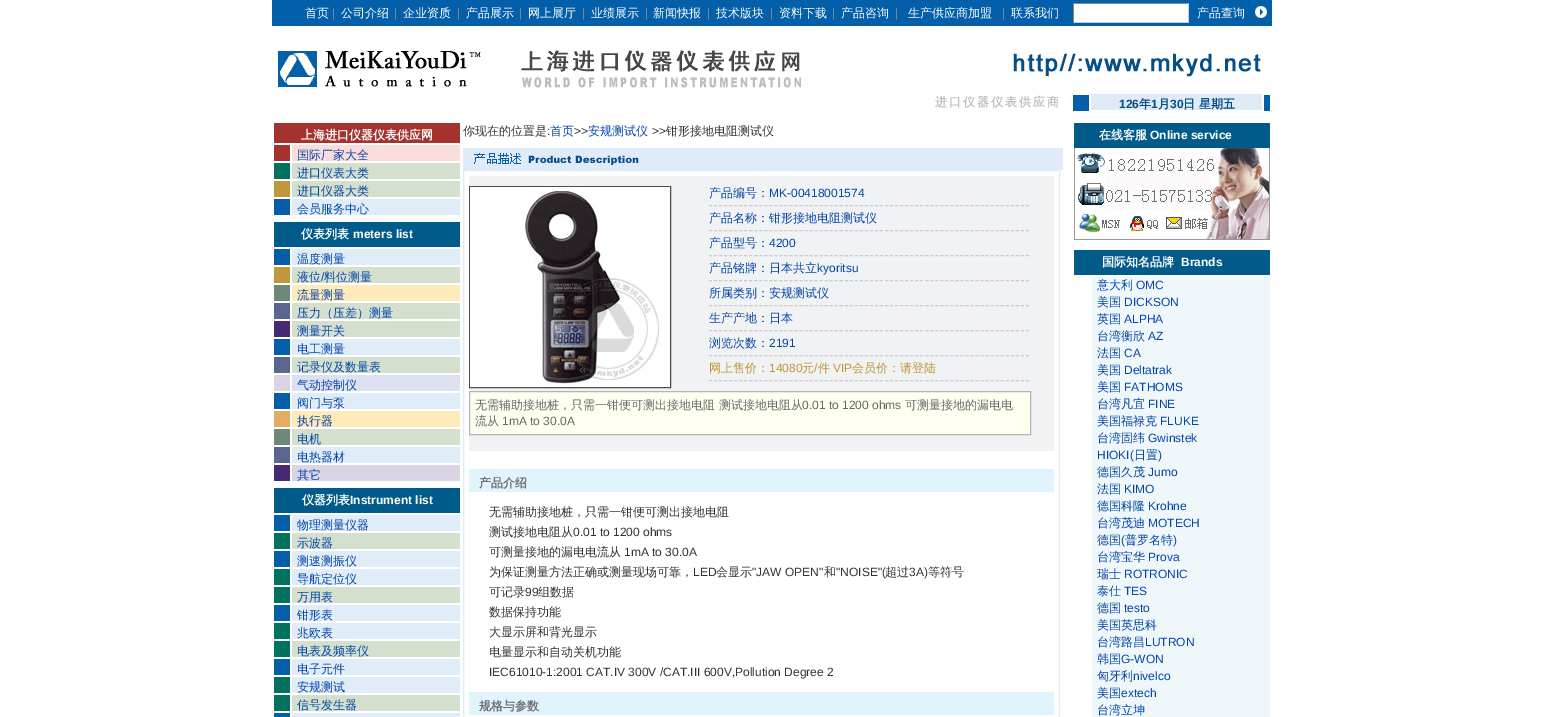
%!PS
<< /PageSize [1544 717] >> setpagedevice
/m/moveto load def
/l/rlineto load def
/z/closepath load def
/f/fill load def
/s/stroke load def
/q/gsave load def
/Q_/grestore load def
/C { dup -16 bitshift 255 div exch dup -8 bitshift 255 and 255 div exch 255 and 255 div setrgbcolor } def
/F { [ exch dup neg 0 0 3 -1 roll 0 0 ] selectfont } def
/T { moveto show } def
/R { rectfill } def
/I { 5 dict begin { /h /w /y /x /name } { exch def } forall
  gsave x y translate w h scale
  w h 8 [w 0 0 h 0 0] name (r) file false 3 colorimage grestore end } def
0 717 translate 1 -1 scale
4 setmiterlimit
16#FFFFFF C
0 0 1544 717 R
16#0260AA C
272 0 30 26 R
16#035FAA C
302 0 762 26 R
/WenQuanYiZenHei-Medium 12 F
16#FFFFFF C
(首页) 305 17 T
/LiberationSans-Regular 12 F
16#798790 C
(|) 332 17 T
/WenQuanYiZenHei-Medium 12 F
16#FFFFFF C
(公司介绍) 341 17 T
/LiberationSans-Regular 12 F
16#798790 C
(|) 394 17 T
/WenQuanYiZenHei-Medium 12 F
16#FFFFFF C
(企业资质) 403 17 T
/LiberationSans-Regular 12 F
16#798790 C
(|) 457 17 T
/WenQuanYiZenHei-Medium 12 F
16#FFFFFF C
(产品展示) 466 17 T
/LiberationSans-Regular 12 F
16#798790 C
(|) 519 17 T
/WenQuanYiZenHei-Medium 12 F
16#FFFFFF C
(网上展厅) 528 17 T
/LiberationSans-Regular 12 F
16#798790 C
(|) 582 17 T
/WenQuanYiZenHei-Medium 12 F
16#FFFFFF C
(业绩展示) 591 17 T
/LiberationSans-Regular 12 F
16#798790 C
(|) 645 17 T
/WenQuanYiZenHei-Medium 12 F
16#FFFFFF C
(新闻快报) 653 17 T
/LiberationSans-Regular 12 F
16#798790 C
(|) 707 17 T
/WenQuanYiZenHei-Medium 12 F
16#FFFFFF C
(技术版块) 716 17 T
/LiberationSans-Regular 12 F
16#798790 C
(|) 770 17 T
/WenQuanYiZenHei-Medium 12 F
16#FFFFFF C
(资料下载) 779 17 T
/LiberationSans-Regular 12 F
16#798790 C
(|) 832 17 T
/WenQuanYiZenHei-Medium 12 F
16#FFFFFF C
(产品咨询) 841 17 T
/LiberationSans-Regular 12 F
16#798790 C
(|) 895 17 T
/WenQuanYiZenHei-Medium 12 F
16#FFFFFF C
(生产供应商加盟) 908 17 T
/LiberationSans-Regular 12 F
16#798790 C
(|) 1002 17 T
/WenQuanYiZenHei-Medium 12 F
16#FFFFFF C
(联系我们) 1011 17 T
16#0260AA C
1064 0 208 26 R
16#FFFFFF C
1074 4 114 18 R
16#888888 C
1073 3 116 1 R
16#CCCCCC C
1188 3 1 20 R
1073 22 116 1 R
16#888888 C
1073 3 1 20 R
16#FFFFFF C
(产品查询) 1197 17 T
(1.rgb) 1255 6 12 12 I
(2.rgb) 278 51 203 36 I
(3.rgb) 521 50 280 38 I
(4.rgb) 1013 52 248 25 I
/WenQuanYiZenHei-Bold 12 F
16#BFC0C2 C
935 106 m 2 0 (进口仪器仪表供应商) ashow
(5.rgb) 1073 95 16 16 I
(6.rgb) 1091 94 171 16 I
/LiberationSans-Bold 12 F
16#074D89 C
(126) 1119 108 T
/WenQuanYiZenHei-Bold 12 F
(年) 1139 108 T
/LiberationSans-Bold 12 F
(1) 1151 108 T
/WenQuanYiZenHei-Bold 12 F
(月) 1158 108 T
/LiberationSans-Bold 12 F
(30) 1170 108 T
/WenQuanYiZenHei-Bold 12 F
(日 星期五) 1183 108 T
(7.rgb) 1264 95 6 16 I
16#A4332F C
274 123 186 20 R
16#FFFFFF C
(上海进口仪器仪表供应网) 301 139 T
16#A4332F C
274 145 16 16 R
16#FADCDA C
292 145 168 16 R
/WenQuanYiZenHei-Medium 12 F
16#0246A9 C
(国际厂家大全) 297 159 T
16#01725E C
274 163 16 16 R
16#D4DFCE C
292 163 168 16 R
16#0246A9 C
(进口仪表大类) 297 177 T
16#C0973B C
274 181 16 16 R
16#D4DFCE C
292 181 168 16 R
16#0246A9 C
(进口仪器大类) 297 195 T
16#045EAA C
274 199 16 16 R
16#E0ECF8 C
292 199 168 16 R
16#0246A9 C
(会员服务中心) 297 213 T
16#005B8A C
274 222 186 25 R
/WenQuanYiZenHei-Bold 12 F
16#FFFFFF C
(仪表列表) 301 238 T
/LiberationSans-Bold 12 F
(meters list) 353 238 T
16#045EAA C
274 249 16 16 R
16#E0ECF8 C
292 249 168 16 R
/WenQuanYiZenHei-Medium 12 F
16#0246A9 C
(温度测量) 297 263 T
16#C0973B C
274 267 16 16 R
16#D4DFCE C
292 267 168 16 R
16#0246A9 C
(液位) 297 281 T
/LiberationSans-Regular 12 F
(/) 321 281 T
/WenQuanYiZenHei-Medium 12 F
(料位测量) 324 281 T
16#6D8877 C
274 285 16 16 R
16#FFEAB9 C
292 285 168 16 R
16#0246A9 C
(流量测量) 297 299 T
16#5C658E C
274 303 16 16 R
16#D4DFCE C
292 303 168 16 R
16#0246A9 C
(压力（压差）测量) 297 317 T
16#452A71 C
274 321 16 16 R
16#D4DFCE C
292 321 168 16 R
16#0246A9 C
(测量开关) 297 335 T
16#045EAA C
274 339 16 16 R
16#E0ECF8 C
292 339 168 16 R
16#0246A9 C
(电工测量) 297 353 T
16#5C658E C
274 357 16 16 R
16#D4DFCE C
292 357 168 16 R
16#0246A9 C
(记录仪及数量表) 297 371 T
16#DBD4E4 C
274 375 16 16 R
16#DDE0F1 C
292 375 168 16 R
16#0246A9 C
(气动控制仪) 297 389 T
16#045EAA C
274 393 16 16 R
16#E0ECF8 C
292 393 168 16 R
16#0246A9 C
(阀门与泵) 297 407 T
16#E2AD61 C
274 411 16 16 R
16#FFEAB9 C
292 411 168 16 R
16#0246A9 C
(执行器) 297 425 T
16#6D8877 C
274 429 16 16 R
16#D4DFCE C
292 429 168 16 R
16#0246A9 C
(电机) 297 443 T
16#5C658E C
274 447 16 16 R
16#E0ECF8 C
292 447 168 16 R
16#0246A9 C
(电热器材) 297 461 T
16#452A71 C
274 465 16 16 R
16#DBD4E4 C
292 465 168 16 R
16#0246A9 C
(其它) 297 479 T
16#005B8A C
274 488 186 25 R
/WenQuanYiZenHei-Bold 12 F
16#FFFFFF C
(仪器列表) 302 504 T
/LiberationSans-Bold 12 F
(Instrument list) 350 504 T
16#045EAA C
274 515 16 16 R
16#E0ECF8 C
292 515 168 16 R
/WenQuanYiZenHei-Medium 12 F
16#0246A9 C
(物理测量仪器) 297 529 T
16#01725E C
274 533 16 16 R
16#D4DFCE C
292 533 168 16 R
16#0246A9 C
(示波器) 297 547 T
16#045EAA C
274 551 16 16 R
16#E0ECF8 C
292 551 168 16 R
16#0246A9 C
(测速测振仪) 297 565 T
16#01725E C
274 569 16 16 R
16#E0ECF8 C
292 569 168 16 R
16#0246A9 C
(导航定位仪) 297 583 T
16#01725E C
274 587 16 16 R
16#D4DFCE C
292 587 168 16 R
16#0246A9 C
(万用表) 297 601 T
16#045EAA C
274 605 16 16 R
16#E0ECF8 C
292 605 168 16 R
16#0246A9 C
(钳形表) 297 619 T
16#01725E C
274 623 16 16 R
16#E0ECF8 C
292 623 168 16 R
16#0246A9 C
(兆欧表) 297 637 T
16#01725E C
274 641 16 16 R
16#D4DFCE C
292 641 168 16 R
16#0246A9 C
(电表及频率仪) 297 655 T
16#045EAA C
274 659 16 16 R
16#E0ECF8 C
292 659 168 16 R
16#0246A9 C
(电子元件) 297 673 T
16#01725E C
274 677 16 16 R
16#E0ECF8 C
292 677 168 16 R
16#0246A9 C
(安规测试) 297 691 T
16#01725E C
274 695 16 16 R
16#D4DFCE C
292 695 168 16 R
16#0246A9 C
(信号发生器) 297 709 T
16#045EAA C
274 713 16 4 R
16#E0ECF8 C
292 713 168 4 R
16#333333 C
(你现在的位置是) 463 135 T
/LiberationSans-Regular 12 F
(:) 547 135 T
/WenQuanYiZenHei-Medium 12 F
16#0246A9 C
(首页) 550 135 T
/LiberationSans-Regular 12 F
16#333333 C
(>>) 574 135 T
/WenQuanYiZenHei-Medium 12 F
16#0246A9 C
(安规测试仪) 588 135 T
/LiberationSans-Regular 12 F
16#333333 C
(>>) 652 135 T
/WenQuanYiZenHei-Medium 12 F
(钳形接地电阻测试仪) 666 135 T
16#DFEBF9 C
463 148 600 22 R
(8.rgb) 474 153 165 12 I
16#DFEBF7 C
463.5 170.5 596 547 rectstroke
16#F1F2F4 C
469 176 585 275 R
16#4D4D4D C
469.5 186.5 201 201 rectstroke
(9.rgb) 470 187 200 200 I
16#CCCCCC C
[3 2.03] 0 setdash
709 205.5 m 320 0 l s
16#0246A9 C
(产品编号：) 709 197 T
/LiberationSans-Regular 12 F
(MK-00418001574) 769 197 T
16#CCCCCC C
709 230.5 m 320 0 l s
/WenQuanYiZenHei-Medium 12 F
16#0246A9 C
(产品名称：钳形接地电阻测试仪) 709 222 T
16#CCCCCC C
709 255.5 m 320 0 l s
16#0246A9 C
(产品型号：) 709 247 T
/LiberationSans-Regular 12 F
(4200) 769 247 T
16#CCCCCC C
709 280.5 m 320 0 l s
/WenQuanYiZenHei-Medium 12 F
16#0246A9 C
(产品铭牌：日本共立) 709 272 T
/LiberationSans-Regular 12 F
(kyoritsu) 817 272 T
16#CCCCCC C
709 305.5 m 320 0 l s
/WenQuanYiZenHei-Medium 12 F
16#0246A9 C
(所属类别：安规测试仪) 709 297 T
16#CCCCCC C
709 330.5 m 320 0 l s
16#0246A9 C
(生产产地：日本) 709 322 T
16#CCCCCC C
709 355.5 m 320 0 l s
16#0246A9 C
(浏览次数：) 709 347 T
/LiberationSans-Regular 12 F
(2191) 769 347 T
16#CCCCCC C
709 380.5 m 320 0 l s
/WenQuanYiZenHei-Medium 12 F
16#BF9536 C
(网上售价：) 709 372 T
/LiberationSans-Regular 12 F
(14080) 769 372 T
/WenQuanYiZenHei-Medium 12 F
(元) 802 372 T
/LiberationSans-Regular 12 F
(/) 814 372 T
/WenQuanYiZenHei-Medium 12 F
(件) 818 372 T
/LiberationSans-Regular 12 F
(VIP) 833 372 T
/WenQuanYiZenHei-Medium 12 F
(会员价：请登陆) 852 372 T
16#FFFFF0 C
469.5 391.5 m 561 0 l 0 43 l -561 0 l z q f Q_
16#B4B4B4 C
[] 0 setdash
s
16#676767 C
(无需辅助接地桩，只需一钳便可测出接地电阻 测试接地电阻从) 475 409 T
/LiberationSans-Regular 12 F
(0.01 to 1200 ohms) 802 409 T
/WenQuanYiZenHei-Medium 12 F
(可测量接地的漏电电) 905 409 T
(流从) 475 425 T
/LiberationSans-Regular 12 F
(1mA to 30.0A) 502 425 T
16#E1F3FD C
469 469 585 23 R
/WenQuanYiZenHei-Bold 12 F
16#6E6E6E C
(产品介绍) 479 487 T
/WenQuanYiZenHei-Medium 12 F
16#333333 C
(无需辅助接地桩，只需一钳便可测出接地电阻) 489 516 T
(测试接地电阻从) 489 536 T
/LiberationSans-Regular 12 F
(0.01 to 1200 ohms) 573 536 T
/WenQuanYiZenHei-Medium 12 F
(可测量接地的漏电电流从) 489 556 T
/LiberationSans-Regular 12 F
(1mA to 30.0A) 624 556 T
/WenQuanYiZenHei-Medium 12 F
(为保证测量方法正确或测量现场可靠，) 489 576 T
/LiberationSans-Regular 12 F
(LED) 693 576 T
/WenQuanYiZenHei-Medium 12 F
(会显示) 716 576 T
/LiberationSans-Regular 12 F
("JAW OPEN") 752 576 T
/WenQuanYiZenHei-Medium 12 F
(和) 824 576 T
/LiberationSans-Regular 12 F
("NOISE"\() 836 576 T
/WenQuanYiZenHei-Medium 12 F
(超过) 885 576 T
/LiberationSans-Regular 12 F
(3A\)) 909 576 T
/WenQuanYiZenHei-Medium 12 F
(等符号) 928 576 T
(可记录) 489 596 T
/LiberationSans-Regular 12 F
(99) 525 596 T
/WenQuanYiZenHei-Medium 12 F
(组数据) 538 596 T
(数据保持功能) 489 616 T
(大显示屏和背光显示) 489 636 T
(电量显示和自动关机功能) 489 656 T
/LiberationSans-Regular 12 F
(IEC61010-1:2001 CAT.IV 300V /CAT.III 600V,Pollution Degree 2) 489 676 T
16#E1F3FD C
469 692 585 23 R
/WenQuanYiZenHei-Bold 12 F
16#6E6E6E C
(规格与参数) 479 710 T
16#005B8A C
1074 123 196 25 R
16#FFFFFF C
(在线客服) 1099 139 T
/LiberationSans-Bold 12 F
(Online service) 1150 139 T
(10.rgb) 1074 148 196 92 I
16#005B8A C
1074 250 196 25 R
/WenQuanYiZenHei-Bold 12 F
16#FFFFFF C
(国际知名品牌) 1102 266 T
/LiberationSans-Bold 12 F
(Brands) 1181 266 T
16#EFF7FA C
1092 277 178 440 R
/WenQuanYiZenHei-Medium 12 F
16#0246A9 C
(意大利) 1097 289 T
/LiberationSans-Regular 12 F
(OMC) 1136 289 T
/WenQuanYiZenHei-Medium 12 F
(美国) 1097 306 T
/LiberationSans-Regular 12 F
(DICKSON) 1124 306 T
/WenQuanYiZenHei-Medium 12 F
(英国) 1097 323 T
/LiberationSans-Regular 12 F
(ALPHA) 1124 323 T
/WenQuanYiZenHei-Medium 12 F
(台湾衡欣) 1097 340 T
/LiberationSans-Regular 12 F
(AZ) 1148 340 T
/WenQuanYiZenHei-Medium 12 F
(法国) 1097 357 T
/LiberationSans-Regular 12 F
(CA) 1124 357 T
/WenQuanYiZenHei-Medium 12 F
(美国) 1097 374 T
/LiberationSans-Regular 12 F
(Deltatrak) 1124 374 T
/WenQuanYiZenHei-Medium 12 F
(美国) 1097 391 T
/LiberationSans-Regular 12 F
(FATHOMS) 1124 391 T
/WenQuanYiZenHei-Medium 12 F
(台湾凡宜) 1097 408 T
/LiberationSans-Regular 12 F
(FINE) 1148 408 T
/WenQuanYiZenHei-Medium 12 F
(美国福禄克) 1097 425 T
/LiberationSans-Regular 12 F
(FLUKE) 1160 425 T
/WenQuanYiZenHei-Medium 12 F
(台湾固纬) 1097 442 T
/LiberationSans-Regular 12 F
(Gwinstek) 1148 442 T
(HIOKI\() 1097 459 T
/WenQuanYiZenHei-Medium 12 F
(日置) 1134 459 T
/LiberationSans-Regular 12 F
(\)) 1158 459 T
/WenQuanYiZenHei-Medium 12 F
(德国久茂) 1097 476 T
/LiberationSans-Regular 12 F
(Jumo) 1148 476 T
/WenQuanYiZenHei-Medium 12 F
(法国) 1097 493 T
/LiberationSans-Regular 12 F
(KIMO) 1124 493 T
/WenQuanYiZenHei-Medium 12 F
(德国科隆) 1097 510 T
/LiberationSans-Regular 12 F
(Krohne) 1148 510 T
/WenQuanYiZenHei-Medium 12 F
(台湾茂迪) 1097 527 T
/LiberationSans-Regular 12 F
(MOTECH) 1148 527 T
/WenQuanYiZenHei-Medium 12 F
(德国) 1097 544 T
/LiberationSans-Regular 12 F
(\() 1121 544 T
/WenQuanYiZenHei-Medium 12 F
(普罗名特) 1125 544 T
/LiberationSans-Regular 12 F
(\)) 1173 544 T
/WenQuanYiZenHei-Medium 12 F
(台湾宝华) 1097 561 T
/LiberationSans-Regular 12 F
(Prova) 1148 561 T
/WenQuanYiZenHei-Medium 12 F
(瑞士) 1097 578 T
/LiberationSans-Regular 12 F
(ROTRONIC) 1124 578 T
/WenQuanYiZenHei-Medium 12 F
(泰仕) 1097 595 T
/LiberationSans-Regular 12 F
(TES) 1124 595 T
/WenQuanYiZenHei-Medium 12 F
(德国) 1097 612 T
/LiberationSans-Regular 12 F
(testo) 1124 612 T
/WenQuanYiZenHei-Medium 12 F
(美国英思科) 1097 629 T
(台湾路昌) 1097 646 T
/LiberationSans-Regular 12 F
(LUTRON) 1145 646 T
/WenQuanYiZenHei-Medium 12 F
(韩国) 1097 663 T
/LiberationSans-Regular 12 F
(G-WON) 1121 663 T
/WenQuanYiZenHei-Medium 12 F
(匈牙利) 1097 680 T
/LiberationSans-Regular 12 F
(nivelco) 1133 680 T
/WenQuanYiZenHei-Medium 12 F
(美国) 1097 697 T
/LiberationSans-Regular 12 F
(extech) 1121 697 T
/WenQuanYiZenHei-Medium 12 F
(台湾立坤) 1097 714 T
showpage
